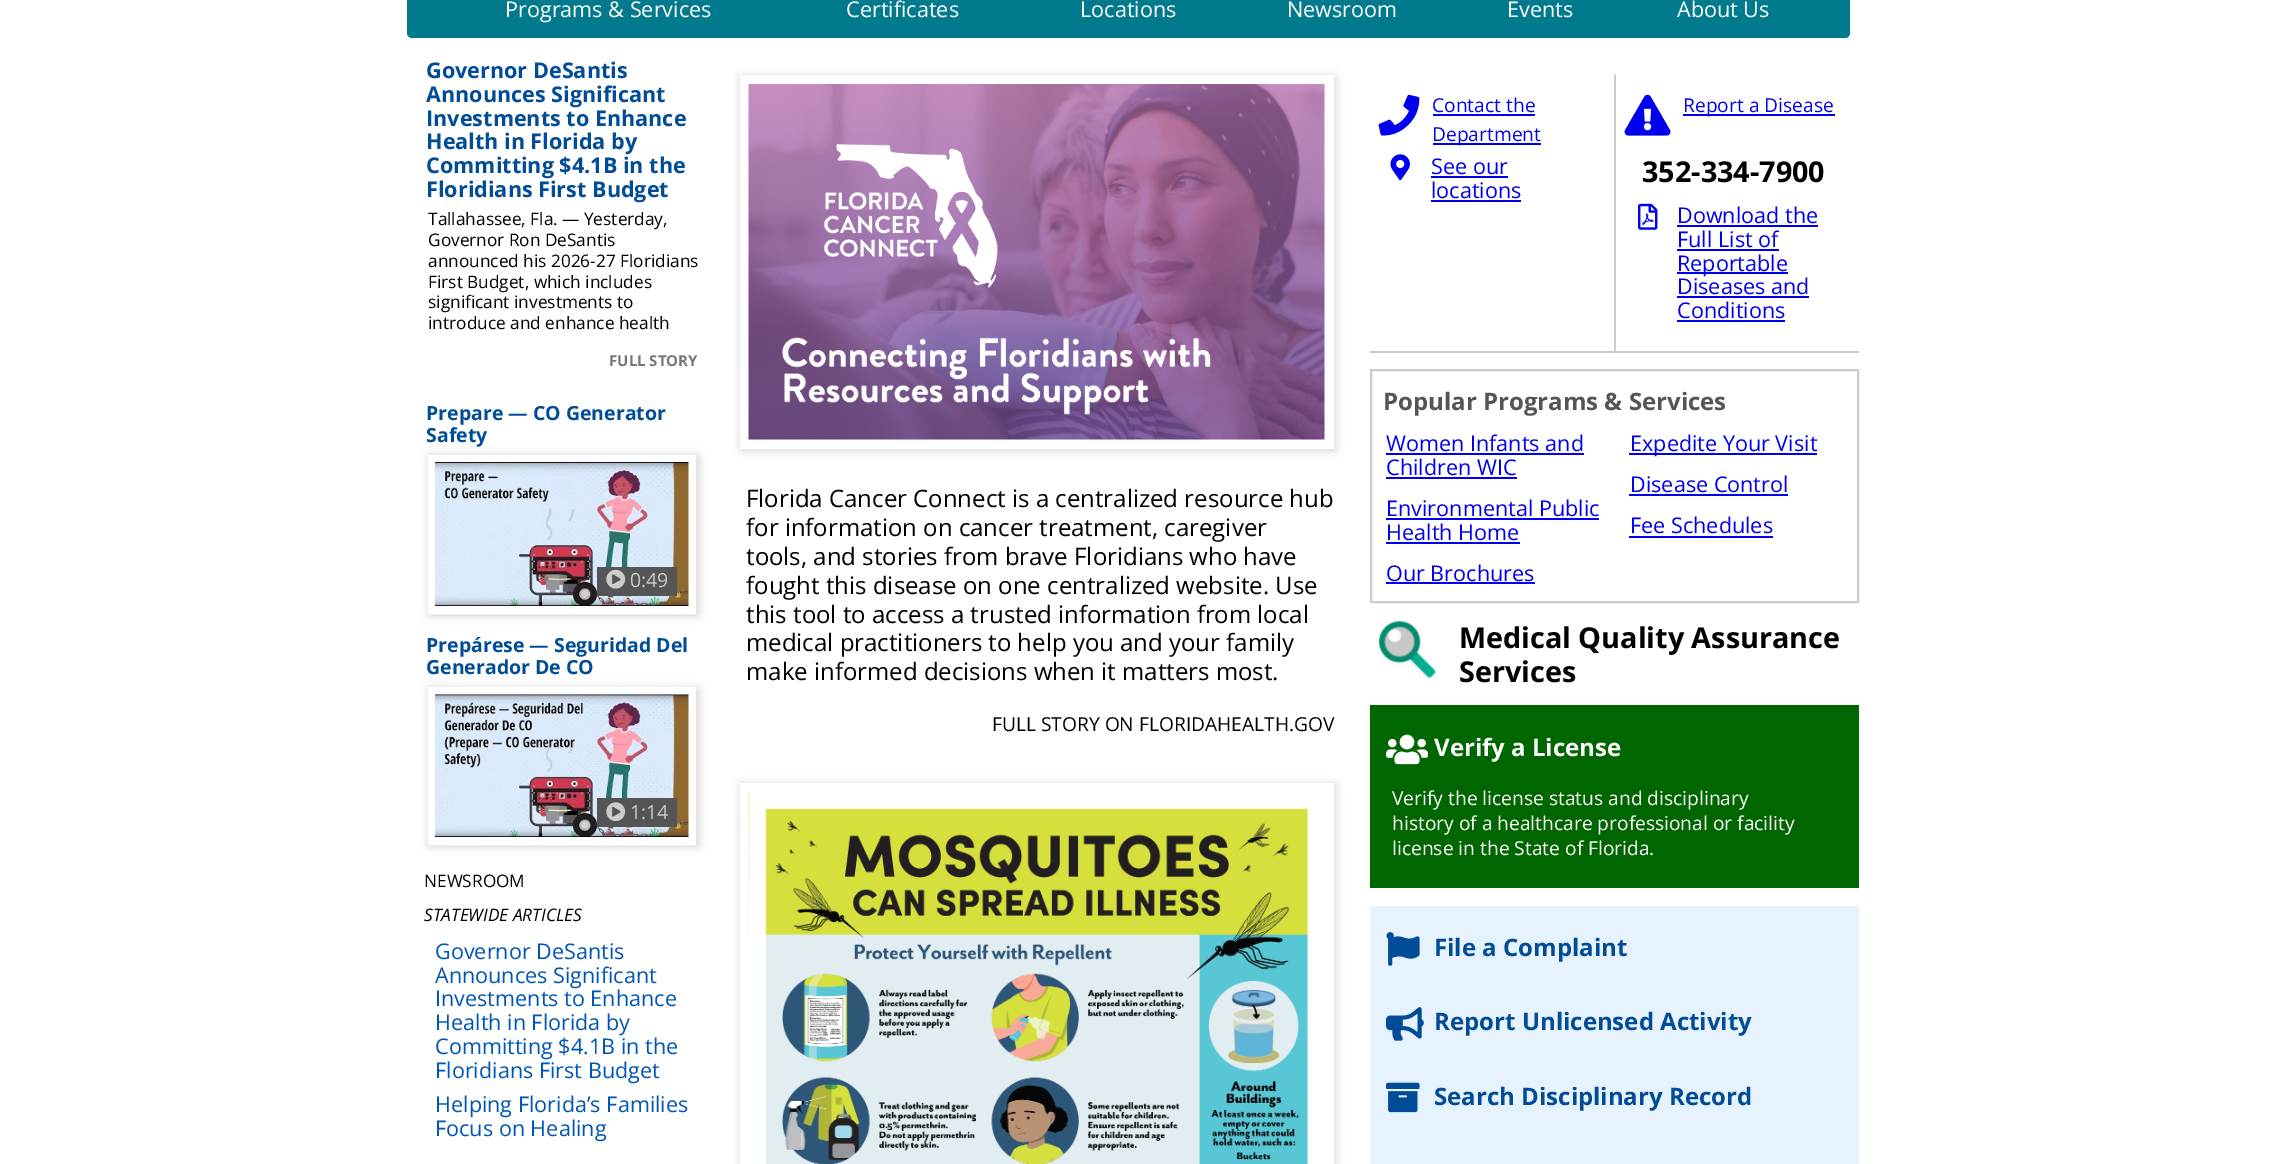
%!PS
<< /PageSize [2283 1164] /PageUsesTransparency true >> setpagedevice
/m/moveto load def
/l/rlineto load def
/z/closepath load def
/f/fill load def
/q/gsave load def
/Q_/grestore load def
/w/setlinewidth load def
/C { dup -16 bitshift 255 div exch dup -8 bitshift 255 and 255 div exch 255 and 255 div setrgbcolor } def
/F { [ exch dup neg 0 0 3 -1 roll 0 0 ] selectfont } def
/T { moveto show } def
/R { rectfill } def
/A { dup .setfillconstantalpha .setstrokeconstantalpha } def
/Q { 5 dict begin { /r /h /w /y /x } { exch def } forall
  x r add y moveto x w add y 2 copy h add r arct x w add y h add x 1 index r arct
  x y h add x y r arct x y 2 copy exch w add exch r arct closepath end } def
/S { 12 dict begin { /a /b /q /h /w /y /x } { exch def } forall gsave /was 0 def
  9 -2 -9 { dup b mul 4 div /e exch def 1 sub .425 mul 2.718 exch exp 1 add a .99 .min exch div /now exch def
    1 1 now sub 1 was sub div sub A /was now def
    w h .min e 2 mul add 0 gt { x e sub y e sub w e 2 mul add h e 2 mul add
      q e add b .6 mul add w h .min 2 div e add .min 0 .max Q fill } if } for grestore end } def
/I { 5 dict begin { /h /w /y /x /name } { exch def } forall
  gsave x y translate w h scale
  w h 8 [w 0 0 h 0 0] name (r) file false 3 colorimage grestore end } def
0 .pushpdf14devicefilter
0 1164 translate 1 -1 scale
4 setmiterlimit
16#FFFFFF C
0 0 2283 1164 R
16#007A8C C
407 -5 1443 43 5 Q f
/OpenSans-Regular 21.6 F
16#FFFFFF C
(Programs & Services) 505 17 T
(Certificates) 846 17 T
(Locations) 1080 17 T
(Newsroom) 1287 17 T
(Events) 1507 17 T
(About Us) 1677 17 T
/OpenSans-Bold 21.6 F
16#004C97 C
(Governor DeSantis) 426 78 T
(Announces Significant) 426 102 T
(Investments to Enhance) 426 126 T
(Health in Florida by) 426 149 T
(Committing $4.1B in the) 426 173 T
(Floridians First Budget) 426 197 T
/OpenSans-Regular 17.25 F
16#000000 C
(Tallahassee, Fla. — Yesterday,) 428 225 T
(Governor Ron DeSantis) 428 246 T
(announced his 2026-27 Floridians) 428 267 T
(First Budget, which includes) 428 288 T
(significant investments to) 428 308 T
(introduce and enhance health) 428 329 T
/OpenSans-Bold 15 F
16#777777 C
(FULL STORY) 609 366 T
/OpenSans-Bold 19.5 F
16#004C97 C
(Prepare — CO Generator) 426 420 T
(Safety) 426 442 T
16#CCCCCC C
429 456 269 159 0 4.5 1 S
16#FFFFFF C
8 w
432 459 260 151 rectstroke
(1.rgb) 435 462 254 144 I
16#555555 C
597 567 80 29 R
(2.rgb) 606 569 20 20 I
/OpenSans-Regular 19.5 F
16#CCCCCC C
(0:49) 630 587 T
/OpenSans-Bold 19.5 F
16#004C97 C
(Prepárese — Seguridad Del) 426 652 T
(Generador De CO) 426 674 T
16#CCCCCC C
429 689 269 157 0 4.5 1 S
16#FFFFFF C
432 691 260 150 rectstroke
(3.rgb) 435 694 254 143 I
16#555555 C
597 798 80 29 R
(4.rgb) 606 802 20 20 I
/OpenSans-Regular 19.5 F
16#CCCCCC C
(1:14) 630 819 T
/OpenSans-Regular 17.25 F
16#000000 C
(NEWSROOM) 424 887 T
/OpenSans-Italic 17.25 F
(STATEWIDE ARTICLES) 424 921 T
/OpenSans-Regular 21.6 F
16#0056B6 C
(Governor DeSantis) 435 959 T
(Announces Significant) 435 983 T
(Investments to Enhance) 435 1006 T
(Health in Florida by) 435 1030 T
(Committing $4.1B in the) 435 1054 T
(Floridians First Budget) 435 1078 T
(Helping Florida’s Families) 435 1112 T
(Focus on Healing) 435 1136 T
16#CCCCCC C
741 77 594 373 0 4.5 1 S
16#FFFFFF C
9 w
744.5 79.5 585 365 rectstroke
(5.rgb) 748 84 577 356 I
/OpenSans-Regular 24 F
16#000000 C
(Florida Cancer Connect is a centralized resource hub) 746 507 T
(for information on cancer treatment, caregiver) 746 536 T
(tools, and stories from brave Floridians who have) 746 565 T
(fought this disease on one centralized website. Use) 746 594 T
(this tool to access a trusted information from local) 746 623 T
(medical practitioners to help you and your family) 746 651 T
(make informed decisions when it matters most.) 746 680 T
/OpenSans-Regular 19.2 F
(FULL STORY ON FLORIDAHEALTH.GOV) 992 731 T
q
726 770 m 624 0 l 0 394 l -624 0 l z 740 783 m 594 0 l 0 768 l -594 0 l z eoclip newpath
16#CCCCCC C
741 785 594 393 0 4.5 1 S
Q_
16#FFFFFF C
744.5 787.5 585 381 rectstroke
(6.rgb) 748 792 561 372 I
16#CCCCCC C
1370 351 489 2 R
(7.rgb) 1378 94 42 42 I
16#0000EE C
(Contact the) 1432 112 T
1433 114 102 2 R
1433 143 108 2 R
(Department) 1432 141 T
(8.rgb) 1390 154 20 27 I
/OpenSans-Regular 21.6 F
(See our) 1431 174 T
1431 176 77 2 R
(locations) 1431 198 T
1431 200 90 2 R
16#CCCCCC C
1614 75 2 276 R
(9.rgb) 1624 94 47 42 I
16#0000EE C
1683 114 152 2 R
/OpenSans-Regular 19.2 F
(Report a Disease) 1683 112 T
/OpenSans-Bold 28.75 F
16#000000 C
(352-334-7900) 1642 182 T
(10.rgb) 1638 203 20 27 I
/OpenSans-Regular 21.6 F
16#0000EE C
(Download the) 1677 223 T
1677 225 141 2 R
(Full List of) 1677 247 T
1677 249 102 2 R
1677 272 111 2 R
(Reportable) 1677 271 T
(Diseases and) 1677 294 T
1677 296 132 2 R
(Conditions) 1677 318 T
1677 320 108 2 R
16#CCCCCC C
2 w
1371 370 487 232 rectstroke
/OpenSans-Bold 24 F
16#555555 C
(Popular Programs & Services) 1383 410 T
/OpenSans-Regular 21.6 F
16#0000EE C
(Women Infants and) 1386 451 T
1386 453 198 2 R
(Children WIC) 1386 475 T
1386 477 131 2 R
(Environmental Public) 1386 516 T
1386 518 213 2 R
(Health Home) 1386 540 T
1386 542 134 2 R
(Our Brochures) 1386 581 T
1386 582 149 2 R
1629 453 188 2 R
(Expedite Your Visit) 1630 451 T
(Disease Control) 1630 492 T
1629 494 159 2 R
(Fee Schedules) 1630 533 T
1629 536 144 2 R
(11.rgb) 1377 619 60 61 I
/OpenSans-Bold 28.75 F
16#000000 C
(Medical Quality Assurance) 1459 648 T
(Services) 1459 682 T
16#006600 C
1370 705 489 183 R
(12.rgb) 1386 734 42 31 I
/OpenSans-Bold 24 F
16#FFFFFF C
(Verify a License) 1434 756 T
/OpenSans-Regular 19.2 F
(Verify the license status and disciplinary) 1392 805 T
(history of a healthcare professional or facility) 1392 830 T
(license in the State of Florida.) 1392 855 T
16#E6F3FF C
1370 906 489 258 R
(13.rgb) 1386 932 34 34 I
/OpenSans-Bold 24 F
16#004C97 C
(File a Complaint) 1434 956 T
(14.rgb) 1386 1007 38 34 I
(Report Unlicensed Activity) 1434 1030 T
(15.rgb) 1386 1082 34 31 I
(Search Disciplinary Record) 1434 1105 T
.poppdf14devicefilter showpage
